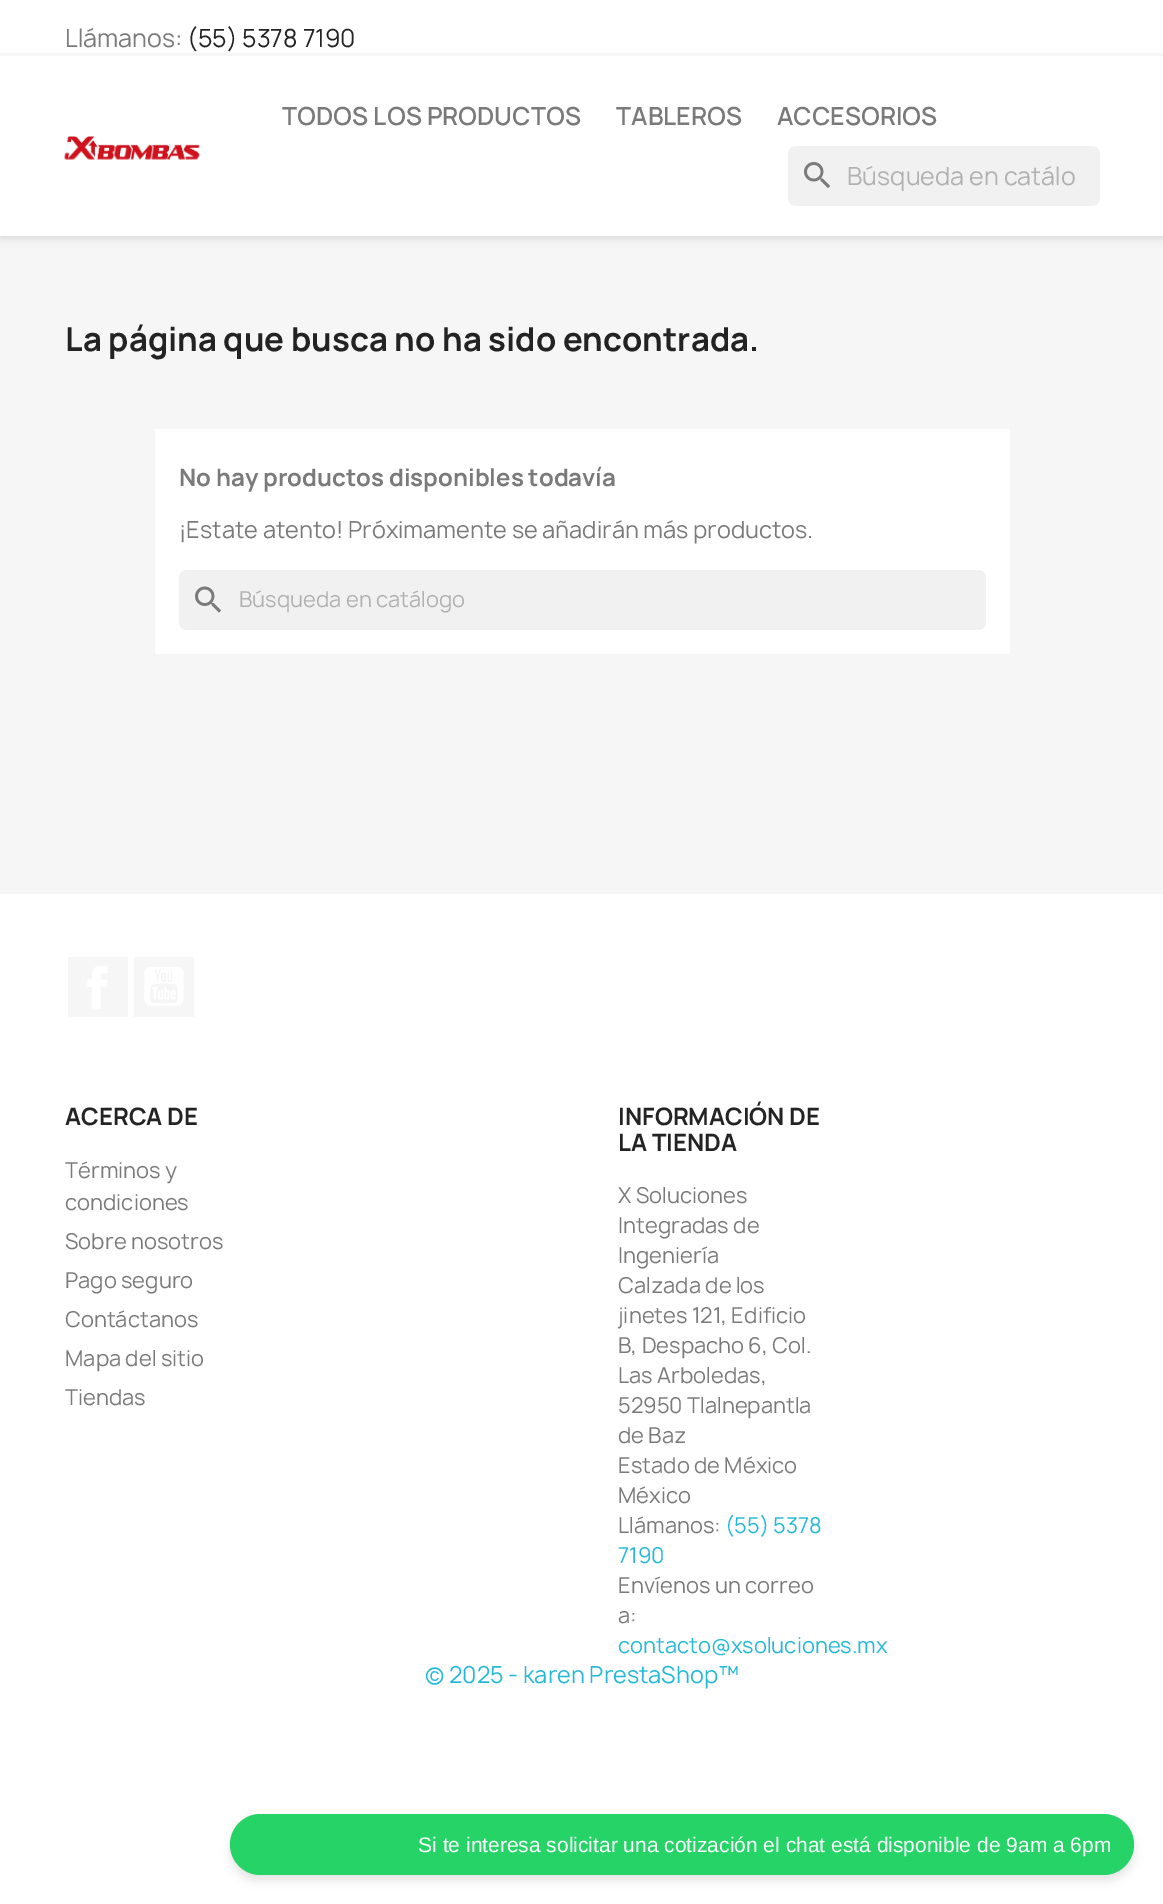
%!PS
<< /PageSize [1163 1904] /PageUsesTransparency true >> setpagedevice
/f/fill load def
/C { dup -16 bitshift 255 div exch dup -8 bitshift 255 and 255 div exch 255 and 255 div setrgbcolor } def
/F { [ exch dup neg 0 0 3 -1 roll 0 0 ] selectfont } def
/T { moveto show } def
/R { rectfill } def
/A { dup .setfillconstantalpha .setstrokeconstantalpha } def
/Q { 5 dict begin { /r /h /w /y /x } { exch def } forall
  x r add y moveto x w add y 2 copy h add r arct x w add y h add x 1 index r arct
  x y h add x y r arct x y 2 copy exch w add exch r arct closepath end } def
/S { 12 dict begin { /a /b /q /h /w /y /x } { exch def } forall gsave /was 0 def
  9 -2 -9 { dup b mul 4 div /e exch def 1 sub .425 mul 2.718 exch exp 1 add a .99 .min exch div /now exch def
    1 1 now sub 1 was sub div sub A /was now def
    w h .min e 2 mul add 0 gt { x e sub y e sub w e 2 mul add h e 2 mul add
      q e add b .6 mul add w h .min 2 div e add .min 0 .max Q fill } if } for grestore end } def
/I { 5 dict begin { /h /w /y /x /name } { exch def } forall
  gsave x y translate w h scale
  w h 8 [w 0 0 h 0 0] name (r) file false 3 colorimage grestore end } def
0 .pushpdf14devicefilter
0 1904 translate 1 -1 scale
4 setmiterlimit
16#FFFFFF C
0 0 1163 1904 R
16#F6F6F6 C
0 236 1163 658 R
16#000000 C
0 3 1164 236 0 4 .11 S
16#FFFFFF C
0 0 1163 236 R
16#F6F6F6 C
0 53 1163 3 R
/Manrope-Regular 24 F
16#7A7A7A C
(Llámanos:) 65 47 T
16#232323 C
(\(55\) 5378 7190) 187 47 T
(1.rgb) 64 136 136 24 I
/Manrope-SemiBold 24 F
16#7A7A7A C
(TODOS LOS PRODUCTOS) 282 125 T
(TABLEROS) 616 125 T
(ACCESORIOS) 777 125 T
16#F1F1F1 C
788 146 312 60 8 Q f
(2.rgb) 804 162 27 26 I
/Manrope-Regular 24 F
16#B1B1B1 C
(Búsqueda en catálo) 847 185 T
/Manrope-Bold 33 F
16#232323 C
(La página que busca no ha sido encontrada.) 65 351 T
16#FFFFFF C
155 429 855 225 R
/Manrope-Bold 24 F
16#7A7A7A C
(No hay productos disponibles todavía) 179 486 T
/Manrope-Regular 22.5 F
(¡Estate atento! Próximamente se añadirán más productos.) 179 538 T
16#F1F1F1 C
179 570 807 60 8 Q f
(3.rgb) 195 586 27 27 I
/Manrope-Regular 21 F
16#B1B1B1 C
(Búsqueda en catálogo) 239 607 T
16#F6F6F6 C
68 957 60 60 R
(4.rgb) 87 966 21 43 I
134 957 60 60 R
(5.rgb) 144 967 40 39 I
/Manrope-Bold 24 F
16#232323 C
(ACERCA DE) 65 1125 T
/Manrope-Regular 21 F
16#7A7A7A C
(Términos y) 65 1178 T
(condiciones) 65 1210 T
(Sobre nosotros) 65 1249 T
(Pago seguro) 65 1288 T
(Contáctanos) 65 1327 T
(Mapa del sitio) 65 1366 T
(Tiendas) 65 1405 T
/Manrope-Bold 24 F
16#232323 C
(INFORMACIÓN DE) 618 1125 T
(LA TIENDA) 618 1151 T
/Manrope-Regular 21 F
16#7A7A7A C
(X Soluciones) 618 1203 T
(Integradas de) 618 1233 T
(Ingeniería) 618 1263 T
(Calzada de los) 618 1293 T
(jinetes 121, Edificio) 618 1323 T
(B, Despacho 6, Col.) 618 1353 T
(Las Arboledas,) 618 1383 T
(52950 Tlalnepantla) 618 1413 T
(de Baz) 618 1443 T
(Estado de México) 618 1473 T
(México) 618 1503 T
(Llámanos:) 618 1533 T
16#24B9D7 C
(\(55\) 5378) 725 1533 T
(7190) 618 1563 T
16#7A7A7A C
(Envíenos un correo) 618 1593 T
(a:) 618 1623 T
16#24B9D7 C
(contacto@xsoluciones.mx) 618 1653 T
/Manrope-Regular 22.5 F
(© 2025 - karen PrestaShop™) 425 1683 T
16#000000 C
230 1820 904 61 30.5 4.5 .1 S
16#25D366 C
230 1814 904 61 30.5 Q f
/LiberationSans-Regular 21 F
16#FFFFFF C
(Si te interesa solicitar una cotización el chat está disponible de 9am a 6pm) 418 1852 T
.poppdf14devicefilter showpage
